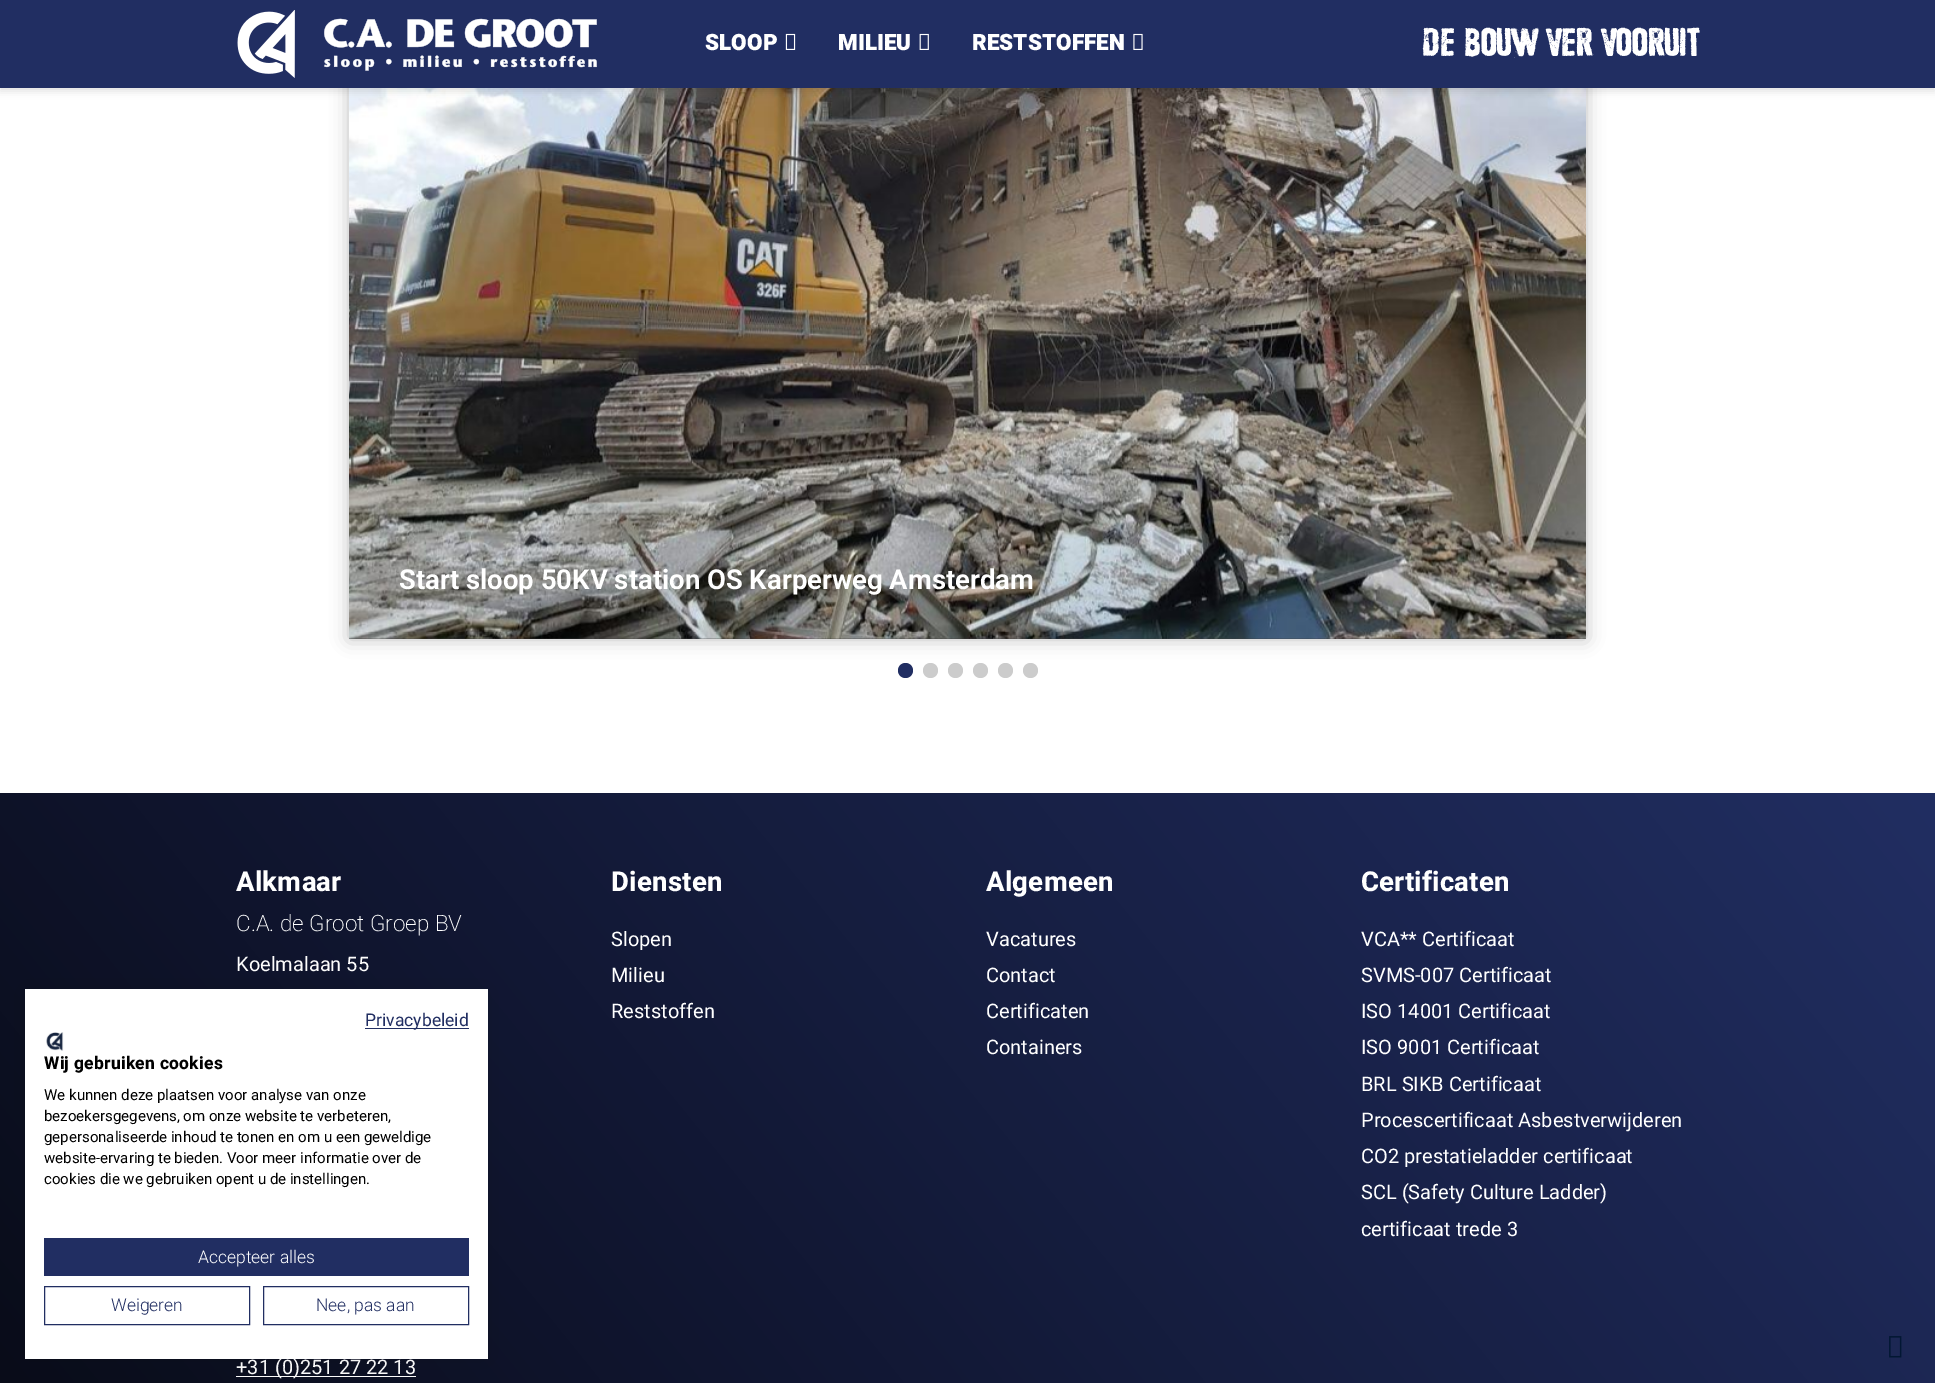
%!PS
<< /PageSize [1935 1383] /PageUsesTransparency true >> setpagedevice
/m/moveto load def
/l/rlineto load def
/z/closepath load def
/f/fill load def
/q/gsave load def
/Q_/grestore load def
/C { dup -16 bitshift 255 div exch dup -8 bitshift 255 and 255 div exch 255 and 255 div setrgbcolor } def
/F { [ exch dup neg 0 0 3 -1 roll 0 0 ] selectfont } def
/T { moveto show } def
/R { rectfill } def
/A { dup .setfillconstantalpha .setstrokeconstantalpha } def
/O { newpath 0 360 arc closepath } def
/Q { 5 dict begin { /r /h /w /y /x } { exch def } forall
  x r add y moveto x w add y 2 copy h add r arct x w add y h add x 1 index r arct
  x y h add x y r arct x y 2 copy exch w add exch r arct closepath end } def
/S { 12 dict begin { /a /b /q /h /w /y /x } { exch def } forall gsave /was 0 def
  9 -2 -9 { dup b mul 4 div /e exch def 1 sub .425 mul 2.718 exch exp 1 add a .99 .min exch div /now exch def
    1 1 now sub 1 was sub div sub A /was now def
    w h .min e 2 mul add 0 gt { x e sub y e sub w e 2 mul add h e 2 mul add
      q e add b .6 mul add w h .min 2 div e add .min 0 .max Q fill } if } for grestore end } def
/I { 5 dict begin { /h /w /y /x /name } { exch def } forall
  gsave x y translate w h scale
  w h 8 [w 0 0 h 0 0] name (r) file false 3 colorimage grestore end } def
0 .pushpdf14devicefilter
0 1383 translate 1 -1 scale
4 setmiterlimit
16#FFFFFF C
0 0 1935 1383 R
16#000000 C
349 -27 1237 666 0 9 .25 S
(5.rgb) 349 88 1237 551 I
0 4 1935 87 0 4 .12 S
16#212E62 C
0 0 1935 88 R
(1.rgb) 237 10 360 68 I
/Heebo-Black 22.5 F
16#FFFFFF C
(SLOOP) 705 50 T
(2.rgb) 785 33 11 17 I
(MILIEU) 838 50 T
(3.rgb) 919 33 10 17 I
(RESTSTOFFEN) 972 50 T
(4.rgb) 1133 33 10 17 I
/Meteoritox-Regular 40 F
(DE BOUW VER VOORUIT) 1422 56 T
/Heebo-SemiBold 27.5 F
(Start sloop 50KV station OS Karperweg Amsterdam) 399 589 T
16#212E62 C
905.5 670.5 7.5 O f
16#CCCCCC C
930.5 670.5 7.5 O f
955.5 670.5 7.5 O f
980.5 670.5 7.5 O f
1005.5 670.5 7.5 O f
1030.5 670.5 7.5 O f
q 0 793 m 1935 0 l 0 590 l -1935 0 l z clip newpath
<< /ShadingType 2 /ColorSpace /DeviceRGB /Coords [1752 566 183 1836] /Extend [true true] /Function << /FunctionType 2 /Domain [0 1] /C0 [.129 .18 .384] /C1 [.027 .035 .078] /N 1 >> >> shfill Q_
/Heebo-Bold 27.5 F
16#FFFFFF C
236 891 m .25 0 (Alkmaar) ashow
/Heebo-ExtraLight 22.5 F
(C.A. de Groot Groep BV) 236 931 T
/Heebo-Regular 20 F
(Koelmalaan 55) 236 971 T
236 1376 180 1 R
(+31 \(0\)251 27 22 13) 236 1374 T
/Heebo-Bold 27.5 F
611 891 m .25 0 (Diensten) ashow
/Heebo-Regular 20 F
(Slopen) 611 946 T
(Milieu) 611 982 T
(Reststoffen) 611 1018 T
/Heebo-Bold 27.5 F
986 891 m .25 0 (Algemeen) ashow
/Heebo-Regular 20 F
(Vacatures) 986 946 T
(Contact) 986 982 T
(Certificaten) 986 1018 T
(Containers) 986 1054 T
/Heebo-Bold 27.5 F
1361 891 m .25 0 (Certificaten) ashow
/Heebo-Regular 20 F
(VCA** Certificaat) 1361 946 T
(SVMS-007 Certificaat) 1361 982 T
(ISO 14001 Certificaat) 1361 1018 T
(ISO 9001 Certificaat) 1361 1054 T
(BRL SIKB Certificaat) 1361 1091 T
(Procescertificaat Asbestverwijderen) 1361 1127 T
(CO2 prestatieladder certificaat) 1361 1163 T
(SCL \(Safety Culture Ladder\)) 1361 1199 T
(certificaat trede 3) 1361 1236 T
16#000000 C
25 989 463 370 0 15 .1 S
16#FFFFFF C
25 989 463 370 R
16#212E62 C
365 1028 104 1 R
/Heebo-Regular 17.5 F
(Privacybeleid) 365 1026 T
(6.rgb) 46 1032 18 19 I
/Heebo-Bold 17.5 F
16#000000 C
44 1069 m .25 0 (Wij gebruiken cookies) ashow
/Heebo-Regular 15 F
(We kunnen deze plaatsen voor analyse van onze) 44 1100 T
(bezoekersgegevens, om onze website te verbeteren,) 44 1121 T
(gepersonaliseerde inhoud te tonen en om u een geweldige) 44 1142 T
(website-ervaring te bieden. Voor meer informatie over de) 44 1163 T
(cookies die we gebruiken opent u de instellingen.) 44 1184 T
16#212E62 C
44 1238 425 38 R
/Heebo-Light 17.5 F
16#FFFFFF C
(Accepteer alles) 198 1263 T
16#212E62 C
44.5 1286.5 205 38 rectstroke
(Weigeren) 111 1311 T
263.5 1286.5 205 38 rectstroke
(Nee, pas aan) 316 1311 T
(7.rgb) 1889 1336 13 22 I
.poppdf14devicefilter showpage
